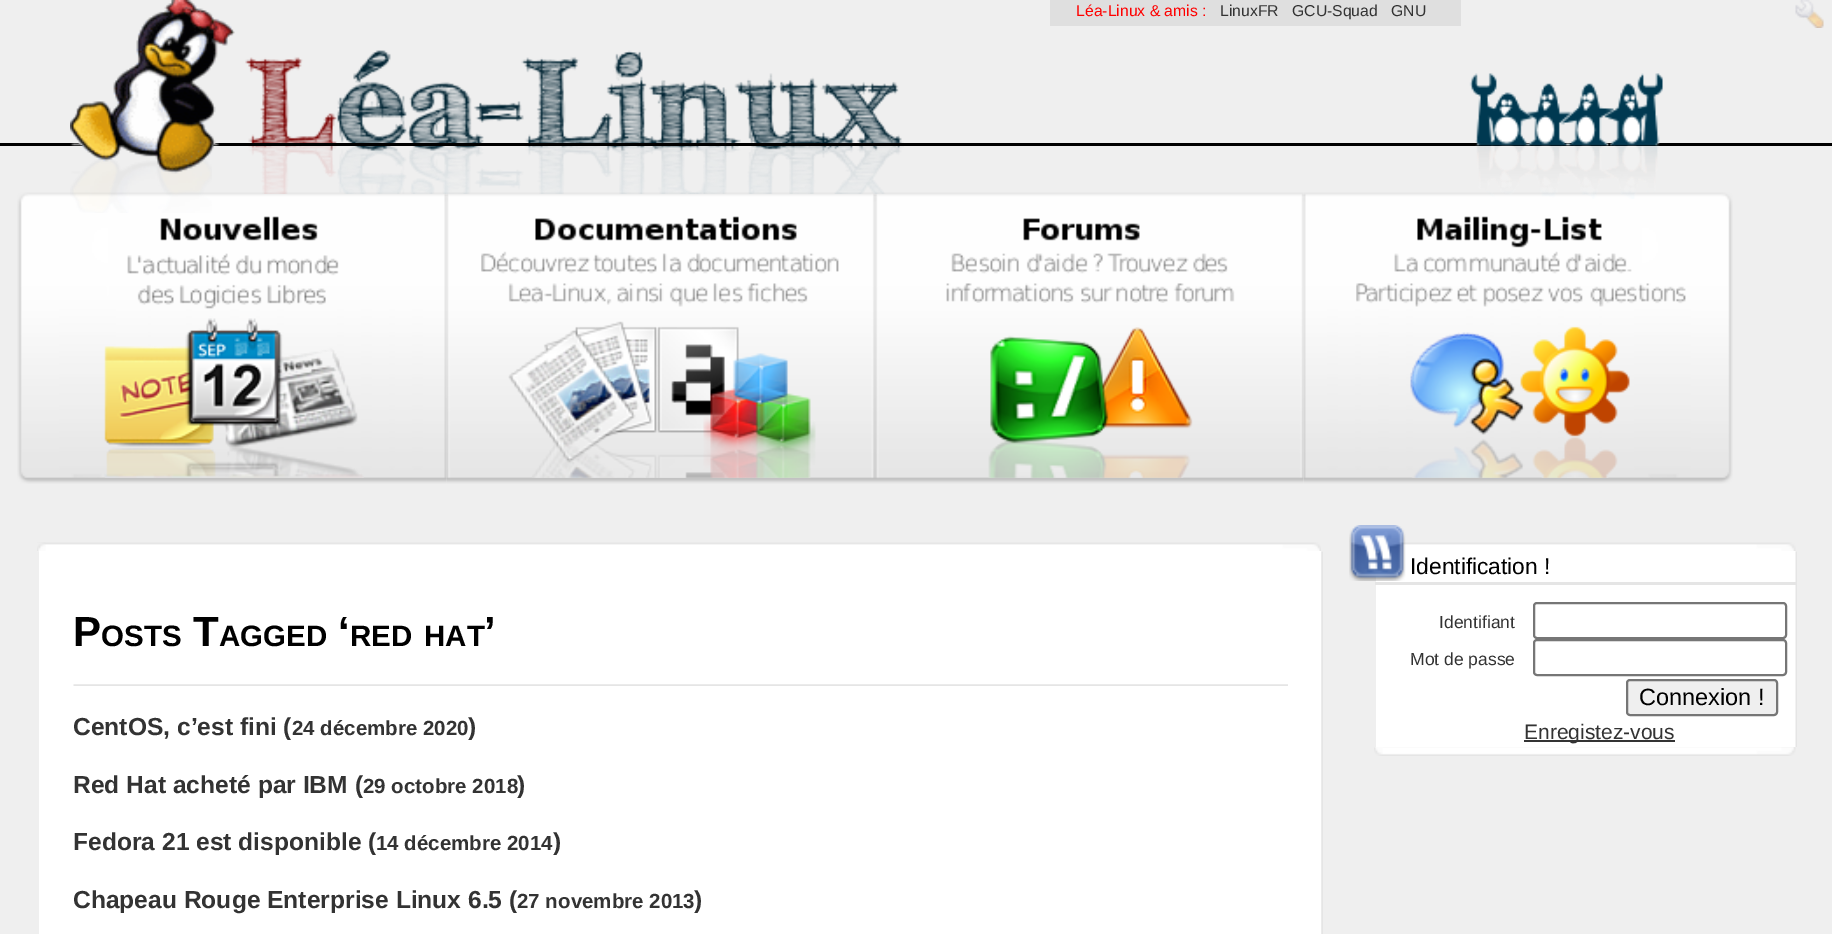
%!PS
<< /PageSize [1832 934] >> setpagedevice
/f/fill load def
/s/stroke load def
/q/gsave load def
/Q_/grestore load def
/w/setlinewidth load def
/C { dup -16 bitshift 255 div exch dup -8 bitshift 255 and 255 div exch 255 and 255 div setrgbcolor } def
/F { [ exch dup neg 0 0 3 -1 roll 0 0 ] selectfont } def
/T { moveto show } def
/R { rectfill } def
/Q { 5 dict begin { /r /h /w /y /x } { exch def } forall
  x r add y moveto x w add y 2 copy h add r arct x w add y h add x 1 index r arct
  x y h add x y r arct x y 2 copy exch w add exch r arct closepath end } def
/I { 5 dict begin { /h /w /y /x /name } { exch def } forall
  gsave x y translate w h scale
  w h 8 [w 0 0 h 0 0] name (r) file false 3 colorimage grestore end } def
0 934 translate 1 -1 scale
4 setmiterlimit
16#EFEFEF C
0 0 1832 934 R
(7.rgb) 17 192 430 292 I
(10.rgb) 446 192 429 292 I
(13.rgb) 875 192 429 292 I
(3.rgb) 245 50 659 144 I
16#000000 C
0 143 1832 3 R
(6.rgb) 70 158 142 55 I
(1.rgb) 70 0 165 174 I
(2.rgb) 1795 0 29 28 I
(4.rgb) 1469 73 194 73 I
(16.rgb) 1304 192 429 292 I
(5.rgb) 1475 141 185 58 I
(8.rgb) 127 216 212 93 I
(9.rgb) 104 318 260 160 I
(11.rgb) 481 216 358 91 I
(12.rgb) 508 321 308 157 I
(14.rgb) 946 218 289 85 I
(15.rgb) 988 327 205 151 I
(17.rgb) 1356 216 330 91 I
(18.rgb) 1410 326 220 152 I
16#DFDFDF C
1050 0 411 26 R
/LiberationSans-Regular 15.75 F
16#FF0000 C
(Léa-Linux & amis :) 1076 16 T
16#333333 C
(LinuxFR) 1220 16 T
(GCU-Squad) 1292 16 T
(GNU) 1391 16 T
(19.rgb) 37 542 1284 10 I
16#FFFFFF C
39 551 1284 383 R
(20.rgb) 1321 551 2 383 I
/LiberationSans-Bold 42 F
16#000000 C
(P) 73 646 T
(T) 193 646 T
(‘) 338 646 T
(’) 484 646 T
/LiberationSans-Bold 29.5 F
(OSTS) 101 646 T
(AGGED) 219 646 T
(RED) 350 646 T
(HAT) 424 646 T
(21.rgb) 73 684 1215 2 I
/LiberationSans-Bold 24.6 F
16#333333 C
(CentOS, c’est fini \() 73 735 T
/LiberationSans-Bold 20.5 F
(24 décembre 2020) 292 735 T
/LiberationSans-Bold 24.6 F
(\)) 468 735 T
(Red Hat acheté par IBM \() 73 793 T
/LiberationSans-Bold 20.5 F
(29 octobre 2018) 363 793 T
/LiberationSans-Bold 24.6 F
(\)) 517 793 T
(Fedora 21 est disponible \() 73 850 T
/LiberationSans-Bold 20.5 F
(14 décembre 2014) 376 850 T
/LiberationSans-Bold 24.6 F
(\)) 553 850 T
(Chapeau Rouge Enterprise Linux 6.5 \() 73 908 T
/LiberationSans-Bold 20.5 F
(27 novembre 2013) 517 908 T
/LiberationSans-Bold 24.6 F
(\)) 694 908 T
(22.rgb) 1401 542 395 9 I
16#FFFFFF C
1376 551 421 196 R
(23.rgb) 1795 551 2 196 I
(24.rgb) 1349 525 57 56 I
/LiberationSans-Regular 22.75 F
16#000000 C
(Identification !) 1410 574 T
16#E5E5E5 C
1375 582 421 3 R
/LiberationSans-Regular 17.5 F
16#333333 C
(Identifiant) 1439 628 T
16#767676 C
2 w
1534 603 252 35 3 Q s
16#333333 C
(Mot de passe) 1410 665 T
16#767676 C
1534 640 252 35 3 Q s
16#EFEFEF C
1627 680 150 35 3 Q q f Q_
16#767676 C
s
/LiberationSans-Regular 23.5 F
16#000000 C
(Connexion !) 1639 705 T
16#333333 C
1524 740 151 2 R
/LiberationSans-Regular 21 F
(Enregistez-vous) 1524 739 T
(25.rgb) 1374 747 422 9 I
showpage
